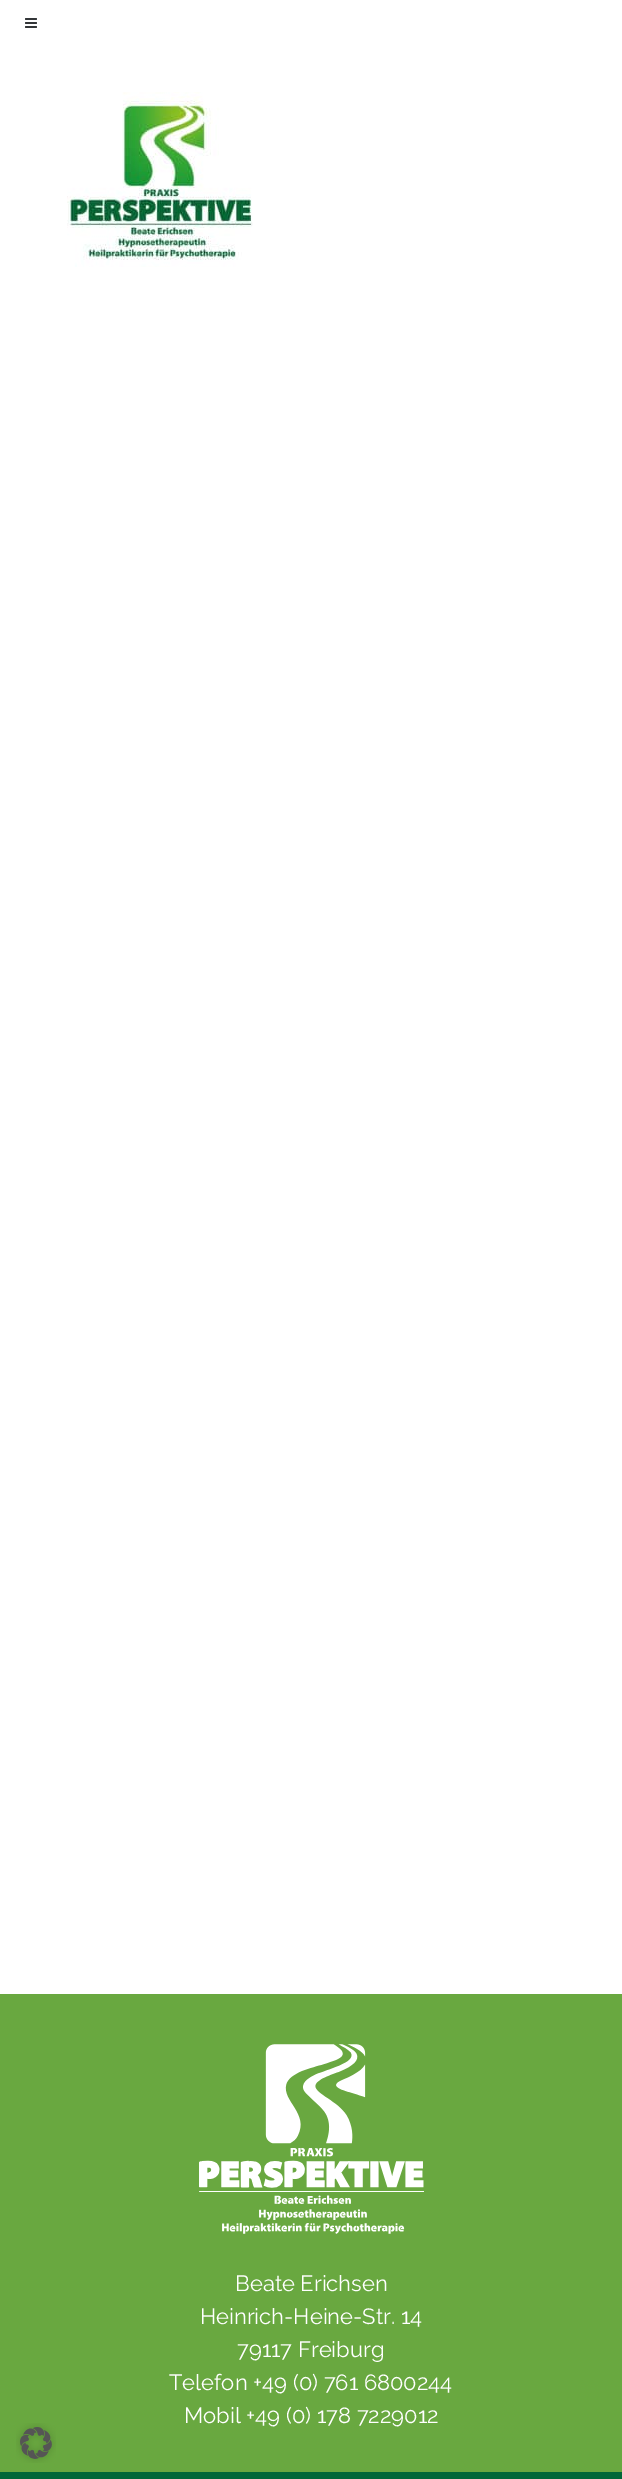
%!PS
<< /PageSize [622 2479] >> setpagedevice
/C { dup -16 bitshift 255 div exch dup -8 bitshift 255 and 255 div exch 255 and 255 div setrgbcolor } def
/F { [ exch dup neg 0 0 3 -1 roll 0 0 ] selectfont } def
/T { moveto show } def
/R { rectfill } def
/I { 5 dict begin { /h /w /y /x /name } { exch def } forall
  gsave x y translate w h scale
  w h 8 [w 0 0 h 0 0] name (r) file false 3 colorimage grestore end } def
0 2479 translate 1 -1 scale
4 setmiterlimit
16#FFFFFF C
0 0 622 2479 R
(1.rgb) 25 18 12 10 I
(2.rgb) 67 92 186 175 I
16#69A840 C
0 1994 622 478 R
(3.rgb) 199 2044 225 190 I
/Raleway-Regular 22 F
16#FFFFFF C
(Beate Erichsen) 235 2291 T
(Heinrich-Heine-Str. 14) 200 2324 T
(79117 Freiburg) 237 2357 T
(Telefon +49 \(0\) 761 6800244) 169 2390 T
(Mobil +49 \(0\) 178 7229012) 184 2423 T
16#006738 C
0 2472 622 7 R
(4.rgb) 16 2423 40 40 I
showpage
